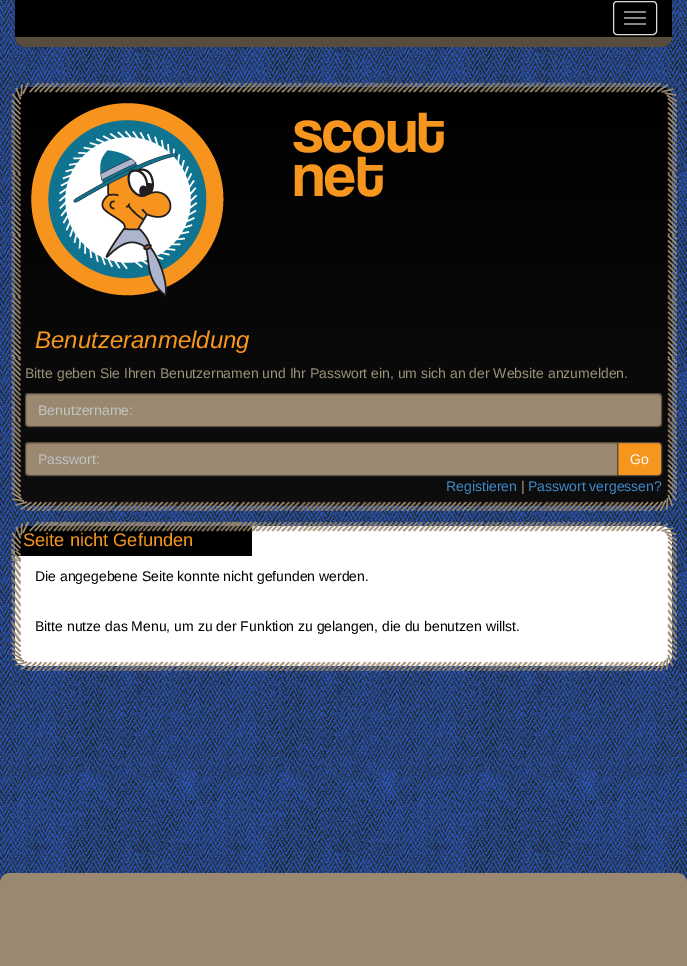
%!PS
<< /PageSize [687 966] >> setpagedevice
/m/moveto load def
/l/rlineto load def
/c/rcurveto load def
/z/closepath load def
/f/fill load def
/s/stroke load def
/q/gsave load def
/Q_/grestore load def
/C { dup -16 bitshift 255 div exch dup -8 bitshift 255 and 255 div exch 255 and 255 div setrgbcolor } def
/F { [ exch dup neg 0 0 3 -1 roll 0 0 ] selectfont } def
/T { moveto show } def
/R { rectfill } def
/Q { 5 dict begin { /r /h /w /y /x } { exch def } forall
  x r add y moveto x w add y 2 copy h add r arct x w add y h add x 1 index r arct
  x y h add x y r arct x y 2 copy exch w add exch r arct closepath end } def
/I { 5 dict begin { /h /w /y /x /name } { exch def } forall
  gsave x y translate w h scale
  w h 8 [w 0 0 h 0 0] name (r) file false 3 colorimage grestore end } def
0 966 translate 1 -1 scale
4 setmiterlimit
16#FFFFFF C
0 0 687 966 R
(1.rgb) 0 0 687 883 I
16#000000 C
15 0 m 657 0 l 0 37 l 0 5.5 -4.5 10 -10 10 c -637 0 l -5.5 0 -10 -4.5 -10 -10 c z f
16#DDDDDD C
613.5 1.5 43 33 3.5 Q s
16#888888 C
624 11 22 2 1 Q f
624 17 22 2 1 Q f
624 23 22 2 1 Q f
16#574C3D C
15 37 m 657 0 l 0 5.5 -4.5 10 -10 10 c -637 0 l -5.5 0 -10 -4.5 -10 -10 c z f
q 15 87 657 419 10 Q clip newpath
<< /ShadingType 2 /ColorSpace /DeviceRGB /Coords [344 87 344 506] /Extend [true true] /Function << /FunctionType 2 /Domain [0 1] /C0 [0 0 0] /C1 [.051 .051 .051] /N 1 >> >> shfill Q_
(2.rgb) 11 82 666 429 I
(3.rgb) 31 103 193 194 I
/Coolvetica-Regular 63 F
16#F7961E C
(scout) 293 152 T
(net) 293 196 T
/LiberationSans-Italic 24 F
(Benutzeranmeldung) 35 348 T
/LiberationSans-Regular 14 F
16#9D927A C
(Bitte geben Sie Ihren Benutzernamen und Ihr Passwort ein, um sich an der Website anzumelden.) 25 378 T
16#9A8970 C
25 393 637 34 4 Q f
16#8E7F68 C
29 395 m 629 0 l 2 0 3 1 3 3 c 0 -1 l 0 -2 -1 -3 -3 -3 c -629 0 l -2 0 -3 1 -3 3 c 0 1 l 0 -2 1 -3 3 -3 c z f
16#574C3D C
25.5 393.5 636 33 3.5 Q s
16#C3C3C3 C
(Benutzername:) 38 415 T
16#F7961E C
617.5 442.5 m 40.5 0 l 2 0 3.5 1.5 3.5 3.5 c 0 26 l 0 2 -1.5 3.5 -3.5 3.5 c -40.5 0 l z q f Q_
16#574C3D C
s
16#9A8970 C
29 442 m 589 0 l 0 34 l -589 0 l -2 0 -4 -2 -4 -4 c 0 -26 l 0 -2 2 -4 4 -4 c z f
16#8E7F68 C
29 444 m 588 0 l 0 -1 l -588 0 l -2 0 -3 1 -3 3 c 0 1 l 0 -2 1 -3 3 -3 c z f
16#574C3D C
29 442.5 m 588.5 0 l 0 33 l -588.5 0 l -2 0 -3.5 -1.5 -3.5 -3.5 c 0 -26 l 0 -2 1.5 -3.5 3.5 -3.5 c z s
16#C3C3C3 C
(Passwort:) 38 464 T
16#FFFFFF C
(Go) 630 464 T
16#428BCA C
(Registieren) 446 491 T
16#9D927A C
(|) 521 491 T
16#428BCA C
(Passwort vergessen?) 528 491 T
16#FFFFFF C
15 526 657 140 10 Q f
(4.rgb) 11 521 666 150 I
16#000000 C
25 526 m 227 0 l 0 30 l -237 0 l 0 -20 l 0 -5.5 4.5 -10 10 -10 c z f
(5.rgb) 11 521 246 40 I
/LiberationSans-Regular 18.25 F
16#F7961E C
(Seite nicht Gefunden) 23 546 T
/LiberationSans-Regular 14 F
16#000000 C
(Die angegebene Seite konnte nicht gefunden werden.) 35 581 T
(Bitte nutze das Menu, um zu der Funktion zu gelangen, die du benutzen willst.) 35 631 T
16#9A8970 C
10 873 m 667 0 l 5.5 0 10 4.5 10 10 c 0 83 l -687 0 l 0 -83 l 0 -5.5 4.5 -10 10 -10 c z f
showpage
